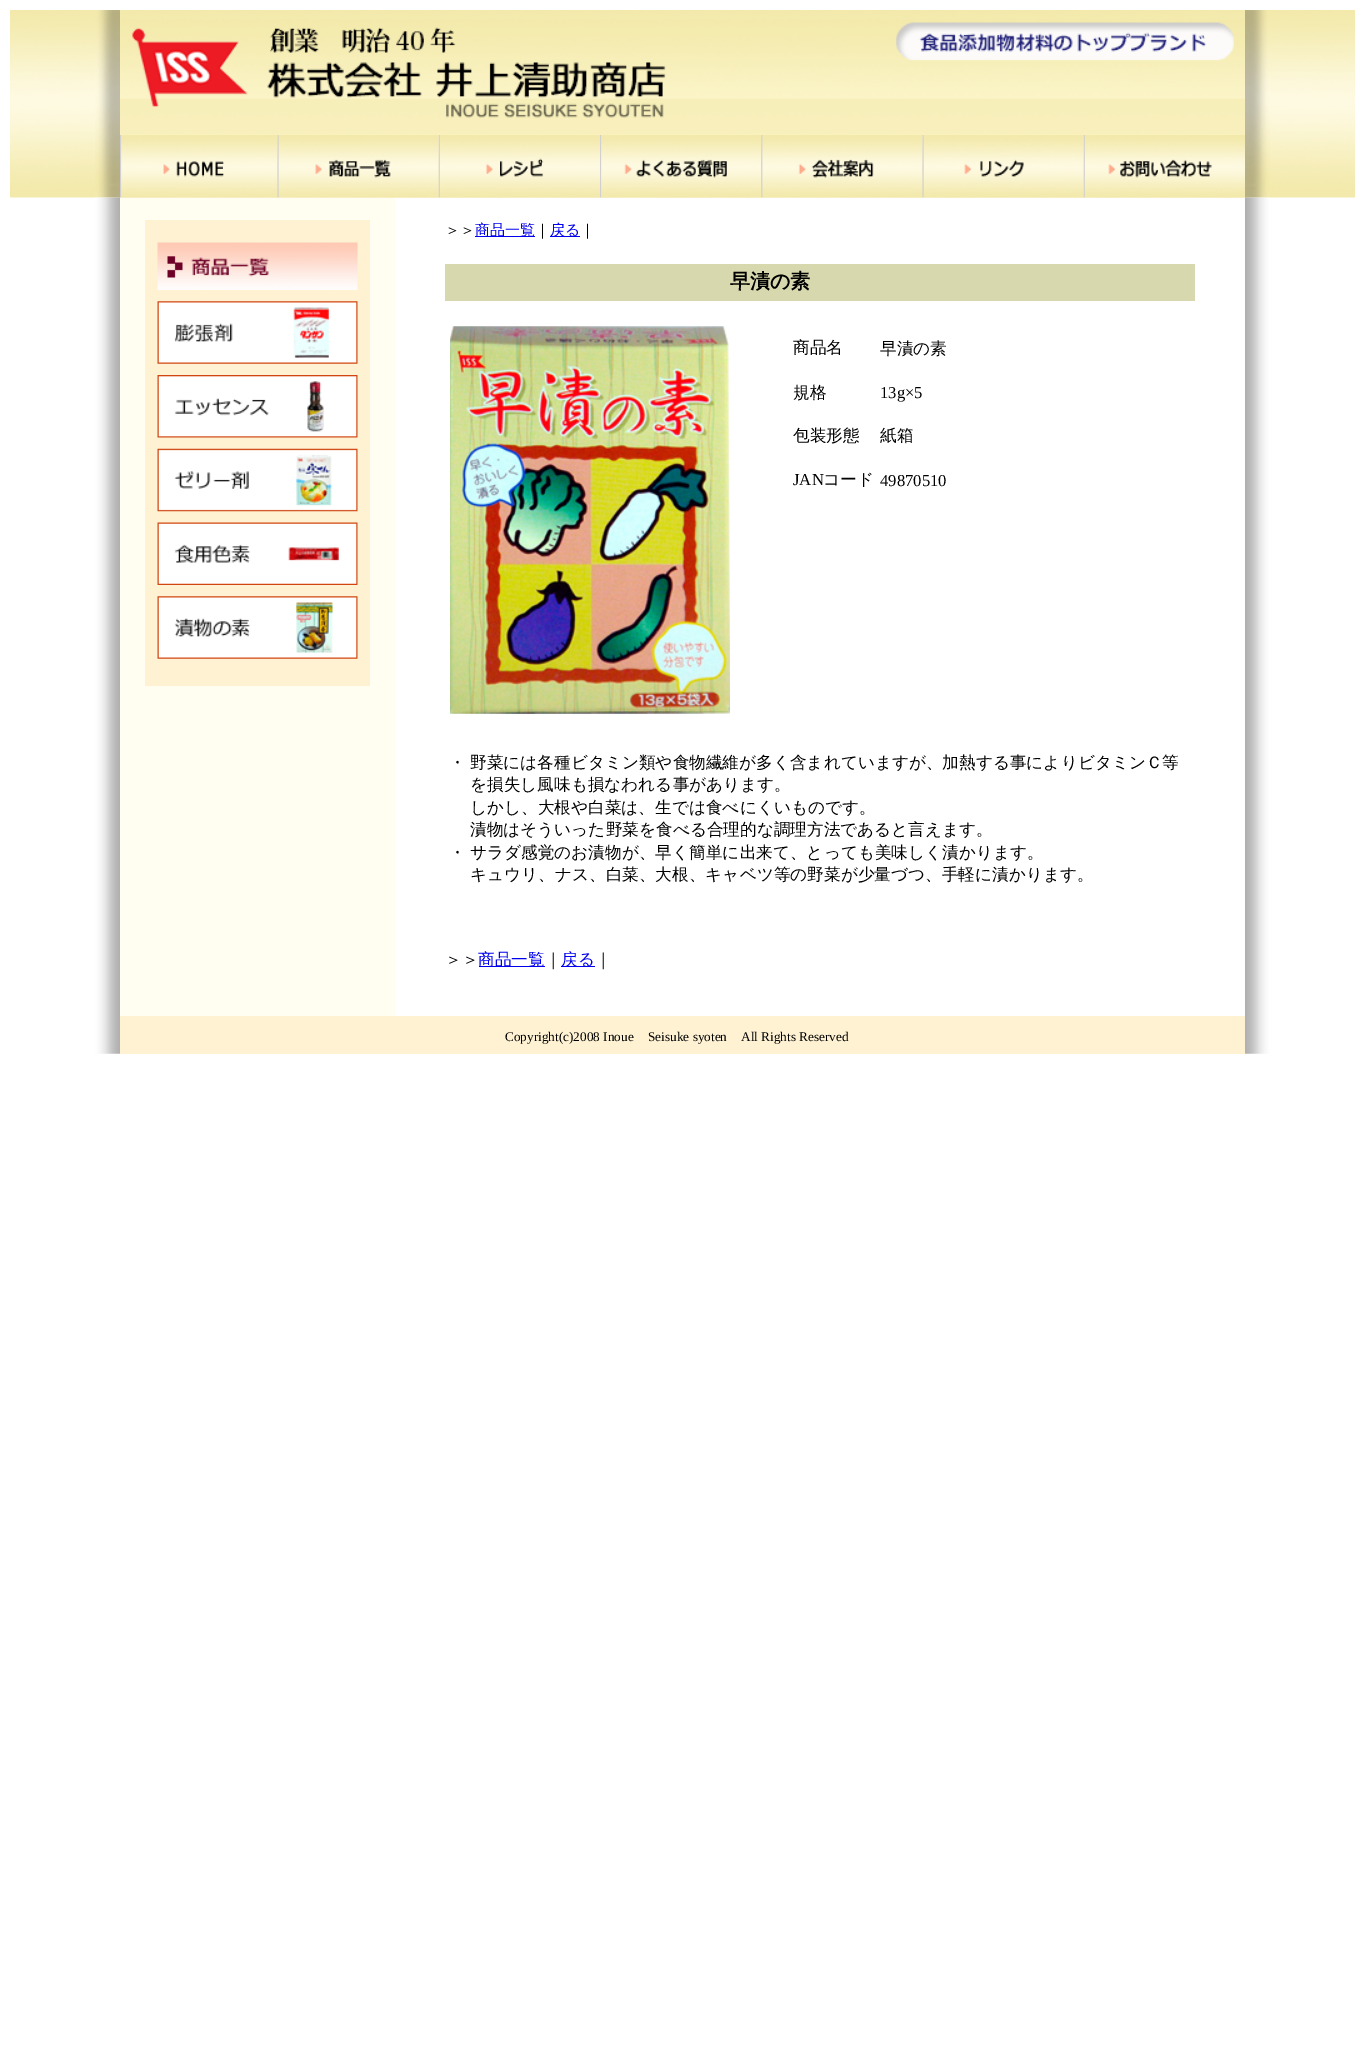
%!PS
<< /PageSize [1364 2061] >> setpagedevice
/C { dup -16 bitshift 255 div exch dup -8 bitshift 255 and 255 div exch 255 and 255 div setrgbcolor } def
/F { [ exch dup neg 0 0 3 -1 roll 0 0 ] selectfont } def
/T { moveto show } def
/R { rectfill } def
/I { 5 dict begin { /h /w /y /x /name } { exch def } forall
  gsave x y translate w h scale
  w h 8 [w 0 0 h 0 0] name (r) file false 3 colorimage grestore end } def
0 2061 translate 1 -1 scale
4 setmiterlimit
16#FFFFFF C
0 0 1364 2061 R
(1.rgb) 10 10 1345 188 I
(2.rgb) 95 10 25 188 I
(3.rgb) 120 19 1125 116 I
(4.rgb) 1245 10 25 188 I
(5.rgb) 120 135 158 63 I
(6.rgb) 277 135 162 63 I
(7.rgb) 438 135 162 63 I
(8.rgb) 600 135 162 63 I
(9.rgb) 761 135 162 63 I
(10.rgb) 922 135 162 63 I
(11.rgb) 1083 135 162 63 I
(12.rgb) 95 197 25 857 I
16#FFFEF0 C
120 198 275 818 R
16#FEF2D3 C
145 220 225 466 R
(13.rgb) 157 242 201 48 I
(14.rgb) 157 301 201 63 I
(15.rgb) 157 375 201 63 I
(16.rgb) 157 448 201 64 I
(17.rgb) 157 522 201 63 I
(18.rgb) 157 596 201 63 I
/WenQuanYiZenHei-Medium 15 F
16#000000 C
(＞＞) 445 235 T
16#0000EE C
475 236 60 1 R
(商品一覧) 475 235 T
16#000000 C
(｜) 535 235 T
16#0000EE C
550 236 30 1 R
(戻る) 550 235 T
16#000000 C
(｜) 580 235 T
16#D8D8AF C
445 264 750 37 R
/WenQuanYiZenHei-Bold 20 F
16#000000 C
(早漬の素) 730 288 T
(19.rgb) 450 326 280 388 I
/WenQuanYiZenHei-Medium 16.65 F
(商品名) 793 353 T
(早漬の素) 880 354 T
(規格) 793 398 T
/LiberationSerif-Regular 16.65 F
(13g×5) 880 398 T
/WenQuanYiZenHei-Medium 16.65 F
(包装形態) 793 441 T
(紙箱) 880 441 T
/LiberationSerif-Regular 16.65 F
(JAN) 793 485 T
/WenQuanYiZenHei-Medium 16.65 F
(コード) 823 485 T
/LiberationSerif-Regular 16.65 F
(49870510) 880 486 T
/WenQuanYiZenHei-Medium 16.65 F
(・) 449 768 T
(野菜には各種ビタミン類や食物繊維が多く含まれていますが、加熱する事によりビタミンＣ等) 470 768 T
(を損失し風味も損なわれる事があります。) 470 790 T
(しかし、大根や白菜は、生では食べにくいものです。) 470 813 T
(漬物はそういった野菜を食べる合理的な調理方法であると言えます。) 470 835 T
(・) 449 858 T
(サラダ感覚のお漬物が、早く簡単に出来て、とっても美味しく漬かります。) 470 858 T
(キュウリ、ナス、白菜、大根、キャベツ等の野菜が少量づつ、手軽に漬かります。) 470 880 T
(＞＞) 445 965 T
16#0000EE C
479 966 66 1 R
(商品一覧) 478 965 T
16#000000 C
(｜) 545 965 T
16#0000EE C
561 966 34 1 R
(戻る) 561 965 T
16#000000 C
(｜) 595 965 T
(20.rgb) 1245 197 25 857 I
16#FEF2D3 C
120 1016 1125 38 R
/LiberationSerif-Regular 13.25 F
16#000000 C
(Copyright\(c\)2008 Inoue) 505 1041 T
(Seisuke syoten) 648 1041 T
(All Rights Reserved) 741 1041 T
showpage
